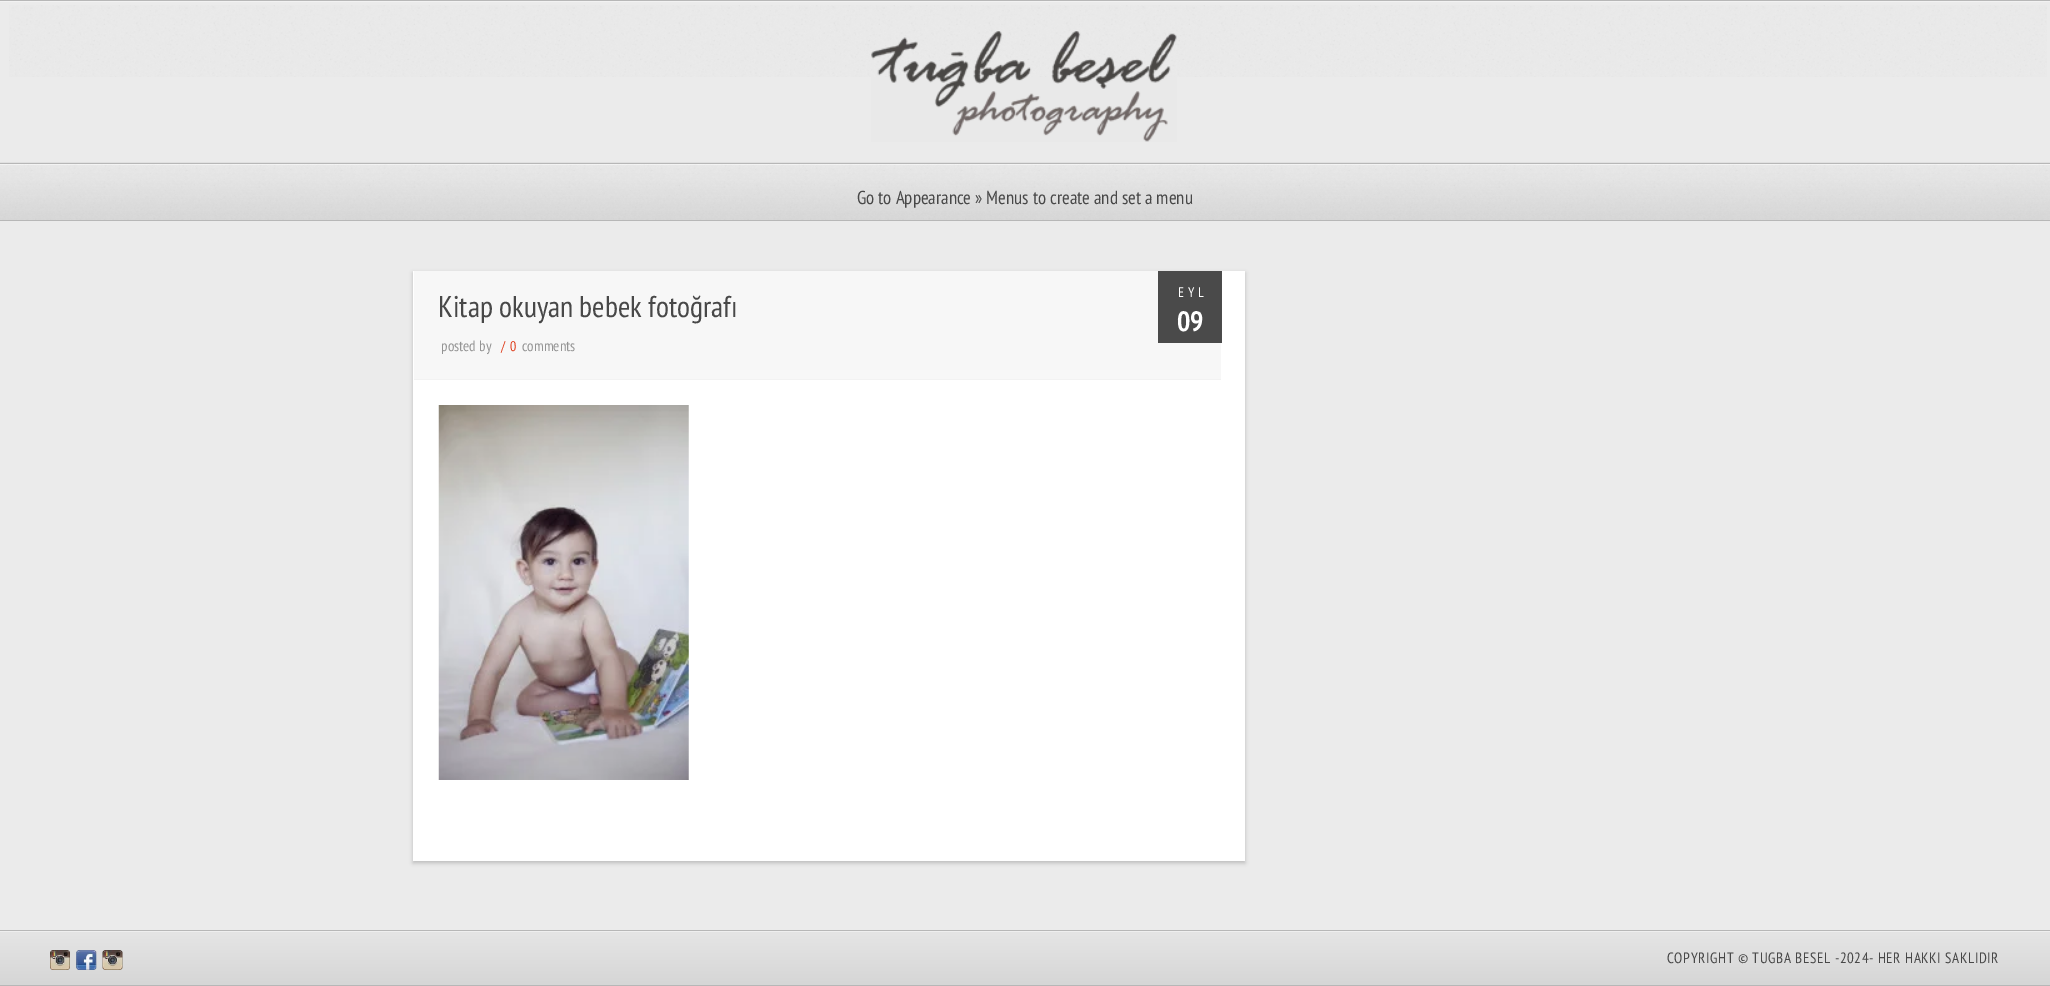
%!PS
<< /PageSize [2050 986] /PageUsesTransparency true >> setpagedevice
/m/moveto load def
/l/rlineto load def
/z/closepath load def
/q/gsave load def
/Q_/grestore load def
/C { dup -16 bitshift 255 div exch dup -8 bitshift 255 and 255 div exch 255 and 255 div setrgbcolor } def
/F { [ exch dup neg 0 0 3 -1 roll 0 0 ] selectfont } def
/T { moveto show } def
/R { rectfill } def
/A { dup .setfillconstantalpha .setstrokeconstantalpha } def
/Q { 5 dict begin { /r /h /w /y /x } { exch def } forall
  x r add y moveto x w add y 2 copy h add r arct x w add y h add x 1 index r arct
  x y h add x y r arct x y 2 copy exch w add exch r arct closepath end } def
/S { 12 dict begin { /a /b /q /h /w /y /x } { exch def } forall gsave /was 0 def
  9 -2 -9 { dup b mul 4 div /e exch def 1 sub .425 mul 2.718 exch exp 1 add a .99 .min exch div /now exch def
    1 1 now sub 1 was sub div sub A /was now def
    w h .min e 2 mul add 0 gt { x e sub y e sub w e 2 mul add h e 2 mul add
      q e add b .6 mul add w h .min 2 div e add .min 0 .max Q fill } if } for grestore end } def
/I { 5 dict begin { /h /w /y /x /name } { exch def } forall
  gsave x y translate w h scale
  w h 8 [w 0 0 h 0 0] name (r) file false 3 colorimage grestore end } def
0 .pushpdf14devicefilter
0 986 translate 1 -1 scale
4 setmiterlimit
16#EBEBEB C
0 0 2050 986 R
(1.rgb) 9 5 2038 72 I
16#F2F2F2 C
0 1 2050 1 R
16#B7B7B7 C
0 0 2050 1 R
0 220 2050 1 R
(2.rgb) 871 31 306 111 I
(3.rgb) 0 162 2050 58 I
0.4 A
16#FFFFFF C
0 164 2050 1 R
1 A
16#B7B7B7 C
0 163 2050 1 R
/PTSansNarrow-Regular 18.75 F
16#484848 C
(Go to Appearance » Menus to create and set a menu) 857 204 T
16#000000 C
413 273 832 590 0 2 .2 S
16#FFFFFF C
413 271 832 590 R
16#F7F7F7 C
414 271 807 108 R
16#F2F2F2 C
414 379 807 1 R
/PTSansNarrow-Regular 30 F
16#484848 C
(Kitap okuyan bebek fotoğrafı) 438 317 T
/PTSansNarrow-Regular 15 F
16#949494 C
(posted by) 441 351 T
/PTSansNarrow-Regular 14 F
16#DE3917 C
501 351 m 1 0 (/ 0) ashow
/PTSansNarrow-Regular 15 F
16#949494 C
(comments) 522 351 T
0.7 A
16#000000 C
1158 271 64 72 R
/PTSansNarrow-Regular 14 F
1 A
16#FFFFFF C
1178 297 m 4 0 (EYL) ashow
/PTSansNarrow-Bold 28 F
(09) 1177 331 T
(4.rgb) 438 405 251 375 I
q 0 932 m 2050 0 l 0 53 l -2050 0 l z clip newpath
<< /ShadingType 2 /ColorSpace /DeviceRGB /Coords [1025 931 1025 985] /Extend [true true] /Function << /FunctionType 2 /Domain [0 1] /C0 [.898 .898 .898] /C1 [.839 .839 .839] /N 1 >> >> shfill Q_
16#EFEFEF C
0 931 2050 1 R
16#B7B7B7 C
0 930 2050 1 R
0 985 2050 1 R
(5.rgb) 50 950 20 20 I
(6.rgb) 76 950 21 20 I
(7.rgb) 102 950 21 20 I
/PTSansNarrow-Regular 15 F
16#484848 C
1667 963 m .6 0 (COPYRIGHT © TUGBA BESEL -2024- HER HAKKI SAKLIDIR) ashow
.poppdf14devicefilter showpage
